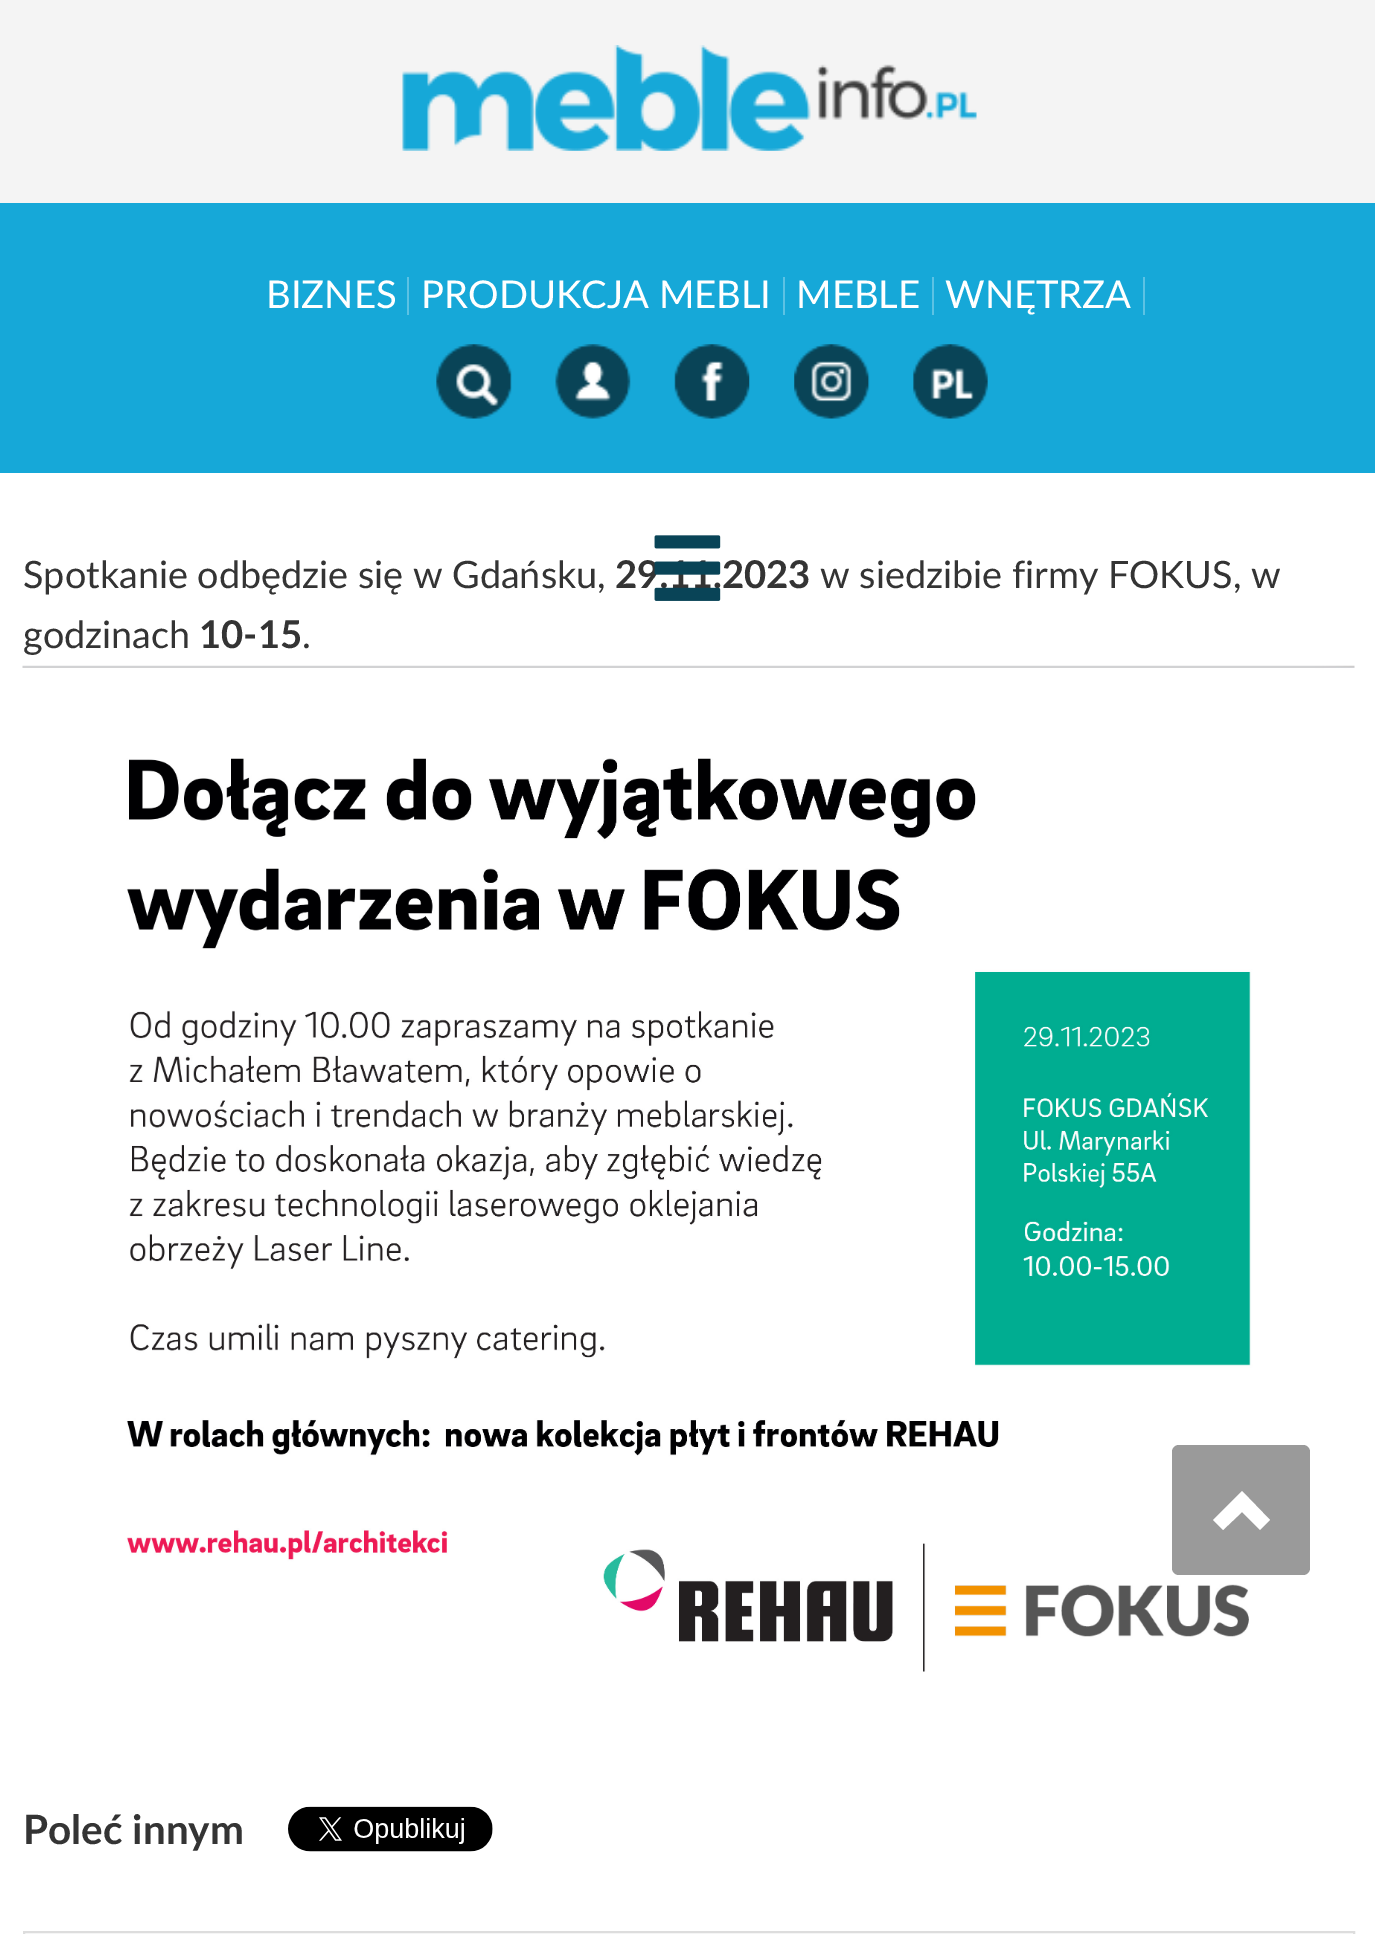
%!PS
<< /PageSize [1375 1934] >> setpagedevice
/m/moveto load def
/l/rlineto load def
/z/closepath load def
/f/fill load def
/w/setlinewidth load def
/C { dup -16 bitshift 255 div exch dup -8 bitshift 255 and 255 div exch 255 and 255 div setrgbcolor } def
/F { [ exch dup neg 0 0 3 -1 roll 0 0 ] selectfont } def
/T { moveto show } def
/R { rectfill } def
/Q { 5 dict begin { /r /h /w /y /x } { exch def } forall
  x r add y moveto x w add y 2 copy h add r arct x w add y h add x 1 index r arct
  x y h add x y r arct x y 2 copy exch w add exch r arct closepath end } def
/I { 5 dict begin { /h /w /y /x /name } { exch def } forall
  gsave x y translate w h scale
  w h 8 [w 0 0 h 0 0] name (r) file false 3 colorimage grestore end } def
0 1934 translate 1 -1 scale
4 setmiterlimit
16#FFFFFF C
0 0 1375 1934 R
16#F4F4F4 C
0 0 1375 203 R
(1.rgb) 402 45 575 106 I
16#16A8D8 C
0 203 1375 270 R
16#5CC2E4 C
407 277 2 38 R
/Lato-Regular 38.25 F
16#FFFFFF C
(BIZNES) 266 308 T
16#5CC2E4 C
783 277 2 38 R
16#FFFFFF C
(PRODUKCJA MEBLI) 421 308 T
16#5CC2E4 C
932 277 2 38 R
16#FFFFFF C
(MEBLE) 796 308 T
16#5CC2E4 C
1143 277 2 38 R
16#FFFFFF C
(WNĘTRZA) 945 308 T
(2.rgb) 436 344 76 75 I
(3.rgb) 555 344 76 75 I
(4.rgb) 674 344 76 75 I
(5.rgb) 794 344 76 75 I
(6.rgb) 913 344 75 75 I
/Lato-Bold 38.25 F
16#343434 C
(29.11.2023) 615 588 T
(7.rgb) 654 535 67 66 I
/Lato-Regular 37.75 F
(Spotkanie odbędzie się w Gdańsku,) 23 588 T
(w siedzibie firmy FOKUS, w) 820 588 T
(godzinach) 23 648 T
/Lato-Bold 38.25 F
(10-15) 199 648 T
/Lato-Regular 37.75 F
(.) 302 648 T
(8.rgb) 22 665 1333 1007 I
/Lato-Bold 40.5 F
(Poleć innym) 23 1844 T
(9.rgb) 288 1806 205 46 I
16#DDDDDD C
2 w
24 1932 1330 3 rectstroke
16#9A9A9A C
1172 1445 138 130 7 Q f
16#FFFFFF C
1270 1520 m -10 10 l -18 -18 l -19 18 l -10 -10 l 29 -29 l z f
showpage
